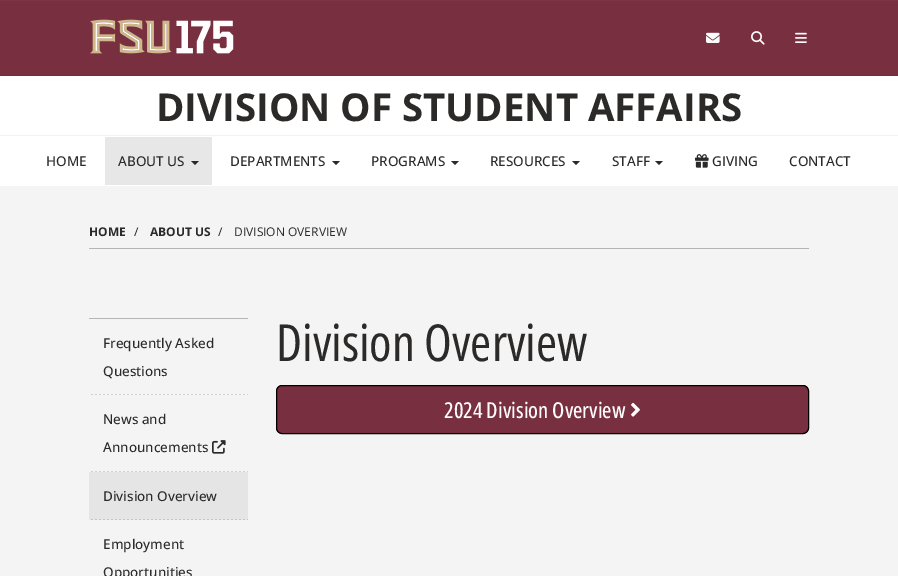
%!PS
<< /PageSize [898 576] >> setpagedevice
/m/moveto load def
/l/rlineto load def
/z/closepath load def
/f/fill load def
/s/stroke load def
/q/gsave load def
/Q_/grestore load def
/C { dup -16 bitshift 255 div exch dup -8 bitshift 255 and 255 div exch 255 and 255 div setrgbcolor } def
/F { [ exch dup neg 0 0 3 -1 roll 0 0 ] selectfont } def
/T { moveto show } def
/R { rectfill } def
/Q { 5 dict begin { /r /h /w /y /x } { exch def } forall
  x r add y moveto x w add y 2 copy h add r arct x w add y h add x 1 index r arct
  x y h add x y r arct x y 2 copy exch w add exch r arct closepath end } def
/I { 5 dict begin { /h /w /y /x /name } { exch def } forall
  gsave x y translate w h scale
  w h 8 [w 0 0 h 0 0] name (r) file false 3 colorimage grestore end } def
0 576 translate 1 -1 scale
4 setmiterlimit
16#782F40 C
0 0 898 576 R
16#7C3546 C
0 0 898 1 R
16#722D3D C
0 75 898 1 R
(1.rgb) 90 19 144 35 I
(2.rgb) 706 32 14 11 I
(3.rgb) 751 31 14 14 I
(4.rgb) 795 32 12 11 I
16#FFFFFF C
0 76 898 59 R
16#F3F2F2 C
0 135 898 1 R
/OpenSans-Bold 38.4 F
16#2C2A29 C
(DIVISION OF STUDENT AFFAIRS) 156 121 T
16#FFFFFF C
0 136 898 50 R
/OpenSans-Medium 13.5 F
16#2C2A29 C
(HOME) 46 166 T
16#E7E7E7 C
105 137 107 48 R
16#2C2A29 C
(ABOUT US) 118 166 T
191 161 m 8 0 l -4 4 l z f
(DEPARTMENTS) 230 166 T
332 161 m 8 0 l -4 4 l z f
(PROGRAMS) 371 166 T
451 161 m 8 0 l -4 4 l z f
(RESOURCES) 490 166 T
572 161 m 8 0 l -4 4 l z f
(STAFF) 612 166 T
655 161 m 8 0 l -4 4 l z f
(5.rgb) 695 154 14 14 I
(GIVING) 712 166 T
(CONTACT) 789 166 T
16#F4F4F4 C
0 186 898 390 R
/OpenSans-Bold 12 F
16#2C2A29 C
(HOME) 89 236 T
/OpenSans-Regular 12 F
(/) 134 236 T
/OpenSans-Bold 12 F
(ABOUT US) 150 236 T
/OpenSans-Regular 12 F
(/) 218 236 T
/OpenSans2-Regular 12 F
(DIVISION OVERVIEW) 234 236 T
16#B5B5B4 C
89 248 720 1 R
89 318 159 1 R
(6.rgb) 91 394 157 1 I
/OpenSans-Medium 13.5 F
16#2C2A29 C
(Frequently Asked) 103 348 T
(Questions) 103 376 T
(6.rgb) 91 471 157 1 I
(News and) 103 424 T
(Announcements) 103 452 T
(7.rgb) 212 440 14 14 I
16#E5E5E5 C
89 472 159 48 R
(8.rgb) 91 519 157 1 I
16#2C2A29 C
(Division Overview) 103 501 T
(Employment) 103 549 T
(Opportunities) 103 577 T
/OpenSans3-Regular 51 F
(Division Overview) 276 361 T
16#782F40 C
276.5 385.5 532 48 5.5 Q q f Q_
16#000000 C
s
/OpenSans2-Medium 22 F
16#FDFCFC C
(2024 Division Overview) 444 418 T
(9.rgb) 631 402 9 15 I
showpage
